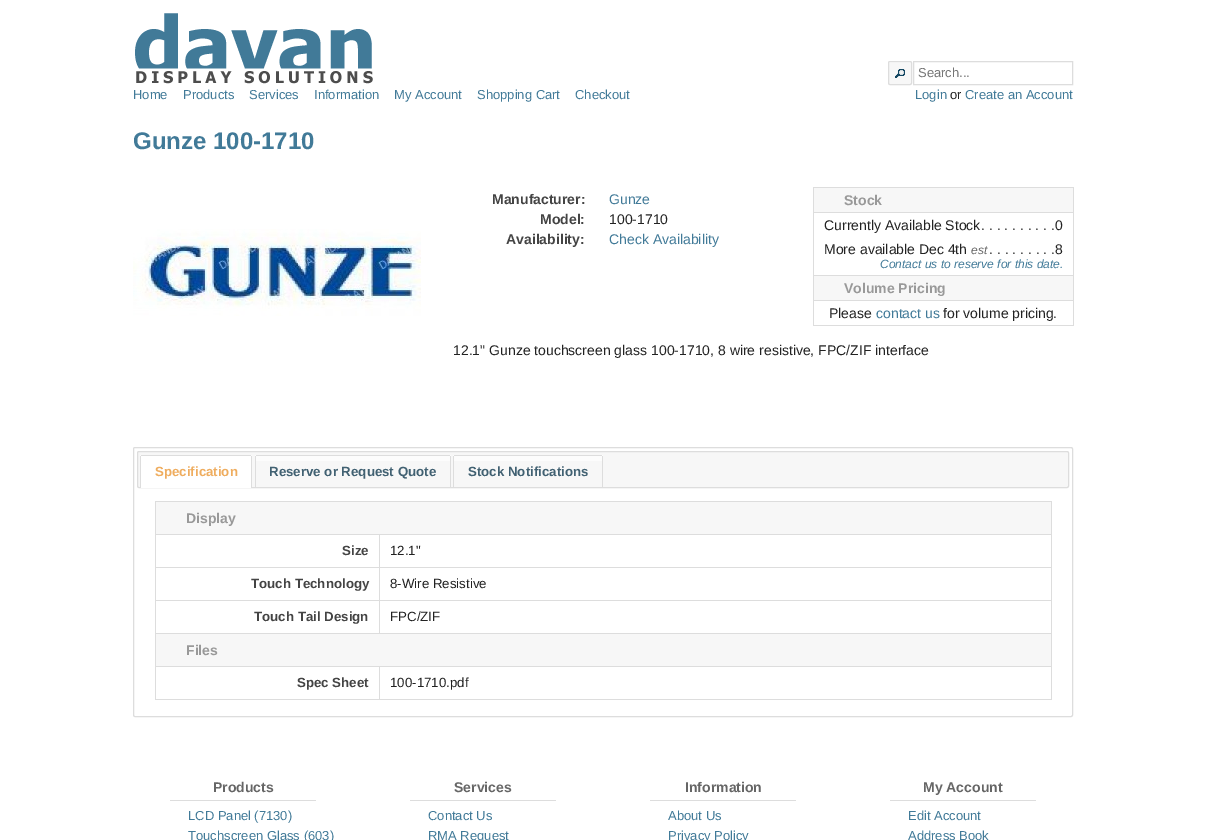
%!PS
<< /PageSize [1206 840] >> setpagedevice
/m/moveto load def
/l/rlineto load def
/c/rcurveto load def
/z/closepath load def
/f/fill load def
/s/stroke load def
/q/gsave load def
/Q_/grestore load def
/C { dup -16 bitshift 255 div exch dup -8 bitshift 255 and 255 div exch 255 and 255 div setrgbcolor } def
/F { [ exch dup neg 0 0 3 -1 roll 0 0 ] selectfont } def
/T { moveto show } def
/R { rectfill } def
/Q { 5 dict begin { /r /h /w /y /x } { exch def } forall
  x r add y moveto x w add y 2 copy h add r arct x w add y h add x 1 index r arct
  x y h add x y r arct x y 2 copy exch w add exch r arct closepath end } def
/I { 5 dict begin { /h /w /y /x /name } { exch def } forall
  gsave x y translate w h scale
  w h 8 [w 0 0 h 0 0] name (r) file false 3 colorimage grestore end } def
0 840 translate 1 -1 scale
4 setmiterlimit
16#FFFFFF C
0 0 1206 840 R
(1.rgb) 135 13 238 71 I
16#F7F7F7 C
888 61 24 24 2 Q f
(2.rgb) 889 61 22 2 I
16#DDDDDD C
888.5 61.5 23 23 1.5 Q s
(3.rgb) 895 69 10 9 I
913.5 61.5 159 23 rectstroke
/LiberationSans-Regular 13 F
16#757575 C
(Search...) 918 77 T
16#417A98 C
(Home) 133 99 T
(Products) 183 99 T
(Services) 249 99 T
(Information) 314 99 T
(My Account) 394 99 T
(Shopping Cart) 477 99 T
(Checkout) 575 99 T
(Login) 915 99 T
16#222222 C
(or) 950 99 T
16#417A98 C
(Create an Account) 965 99 T
/LiberationSans-Bold 24 F
(Gunze 100-1710) 133 149 T
(4.rgb) 133 229 288 87 I
/LiberationSans-Bold 14 F
16#444444 C
(Manufacturer:) 492 204 T
/LiberationSans-Regular 14 F
16#417A98 C
(Gunze) 609 204 T
/LiberationSans-Bold 14 F
16#444444 C
(Model:) 540 224 T
/LiberationSans-Regular 14 F
16#222222 C
(100-1710) 609 224 T
/LiberationSans-Bold 14 F
16#444444 C
(Availability:) 506 244 T
/LiberationSans-Regular 14 F
16#417A98 C
(Check Availability) 609 244 T
16#F7F7F7 C
814 188 259 24 R
16#DDDDDD C
813 187 261 1 R
813 212 261 1 R
813 275 261 1 R
813 300 261 1 R
1073 300 1 26 R
1073 275 1 26 R
1073 212 1 64 R
1073 187 1 26 R
813 325 261 1 R
813 300 1 26 R
813 275 1 26 R
813 212 1 64 R
813 187 1 26 R
/LiberationSans-Bold 14 F
16#999999 C
(Stock) 844 205 T
/LiberationSans-Regular 14 F
16#222222 C
(Currently Available Stock) 824 230 T
(. . . . . . . . . .0) 981 230 T
(More available Dec 4th) 824 254 T
/LiberationSans-Italic 12 F
16#666666 C
(est) 971 254 T
/LiberationSans-Regular 14 F
16#222222 C
(. . . . . . . . .8) 989 254 T
/LiberationSans-Italic 12 F
16#417A98 C
(Contact us to reserve for this date.) 880 268 T
16#F7F7F7 C
814 276 259 24 R
/LiberationSans-Bold 14 F
16#999999 C
(Volume Pricing) 844 293 T
/LiberationSans-Regular 14 F
16#222222 C
(Please) 829 318 T
16#417A98 C
(contact us) 876 318 T
16#222222 C
(for volume pricing.) 943 318 T
(12.1" Gunze touchscreen glass 100-1710, 8 wire resistive, FPC/ZIF interface) 453 355 T
16#DDDDDD C
133.5 447.5 939 269 1.5 Q s
16#F7F7F7 C
137.5 451.5 931 36 1.5 Q q f Q_
16#DDDDDD C
s
16#FFFFFF C
142 455 m 108 0 l 1 0 2 1 2 2 c 0 31 l -112 0 l 0 -31 l 0 -1 1 -2 2 -2 c z f
16#DDDDDD C
141 455 110 1 R
251 456 1 32 R
140 456 1 32 R
/LiberationSans-Bold 13.3 F
16#EFAD5F C
(Specification) 155 476 T
16#FCFCFC C
255 455 196 6 R
16#DDDDDD C
256 455 194 1 R
450 456 1 31 R
255 456 1 31 R
16#416172 C
(Reserve or Request Quote) 269 476 T
16#FCFCFC C
453 455 150 6 R
16#DDDDDD C
454 455 148 1 R
602 456 1 31 R
453 456 1 31 R
16#416172 C
(Stock Notifications) 468 476 T
16#F7F7F7 C
156 502 895 32 R
16#DDDDDD C
155 501 897 1 R
379 534 673 1 R
379 567 673 1 R
379 600 673 1 R
155 633 897 1 R
379 666 673 1 R
1051 666 1 34 R
1051 633 1 34 R
1051 600 1 34 R
1051 567 1 34 R
1051 534 1 34 R
1051 501 1 34 R
379 600 1 34 R
155 600 225 1 R
379 567 1 34 R
155 567 225 1 R
379 534 1 34 R
155 534 225 1 R
379 699 673 1 R
379 666 1 34 R
155 666 225 1 R
155 699 225 1 R
155 666 1 34 R
155 633 1 34 R
155 600 1 34 R
155 567 1 34 R
155 534 1 34 R
155 501 1 34 R
/LiberationSans-Bold 14 F
16#999999 C
(Display) 186 523 T
/LiberationSans-Bold 13.3 F
16#444444 C
(Size) 342 555 T
/LiberationSans-Regular 13.3 F
16#222222 C
(12.1") 390 555 T
/LiberationSans-Bold 13.3 F
16#444444 C
(Touch Technology) 251 588 T
/LiberationSans-Regular 13.3 F
16#222222 C
(8-Wire Resistive) 390 588 T
/LiberationSans-Bold 13.3 F
16#444444 C
(Touch Tail Design) 254 621 T
/LiberationSans-Regular 13.3 F
16#222222 C
(FPC/ZIF) 390 621 T
16#F7F7F7 C
156 634 895 32 R
/LiberationSans-Bold 14 F
16#999999 C
(Files) 186 655 T
/LiberationSans-Bold 13.3 F
16#444444 C
(Spec Sheet) 297 687 T
/LiberationSans-Regular 13.3 F
16#222222 C
(100-1710.pdf) 390 687 T
16#DDDDDD C
170 800 146 1 R
/LiberationSans-Bold 14 F
16#666666 C
(Products) 213 792 T
/LiberationSans-Regular 13 F
16#417A98 C
(LCD Panel \(7130\)) 188 820 T
(Touchscreen Glass \(603\)) 188 840 T
16#DDDDDD C
410 800 146 1 R
/LiberationSans-Bold 14 F
16#666666 C
(Services) 454 792 T
/LiberationSans-Regular 13 F
16#417A98 C
(Contact Us) 428 820 T
(RMA Request) 428 840 T
16#DDDDDD C
650 800 146 1 R
/LiberationSans-Bold 14 F
16#666666 C
(Information) 685 792 T
/LiberationSans-Regular 13 F
16#417A98 C
(About Us) 668 820 T
(Privacy Policy) 668 840 T
16#DDDDDD C
890 800 146 1 R
/LiberationSans-Bold 14 F
16#666666 C
(My Account) 923 792 T
/LiberationSans-Regular 13 F
16#417A98 C
(Edit Account) 908 820 T
(Address Book) 908 840 T
showpage
